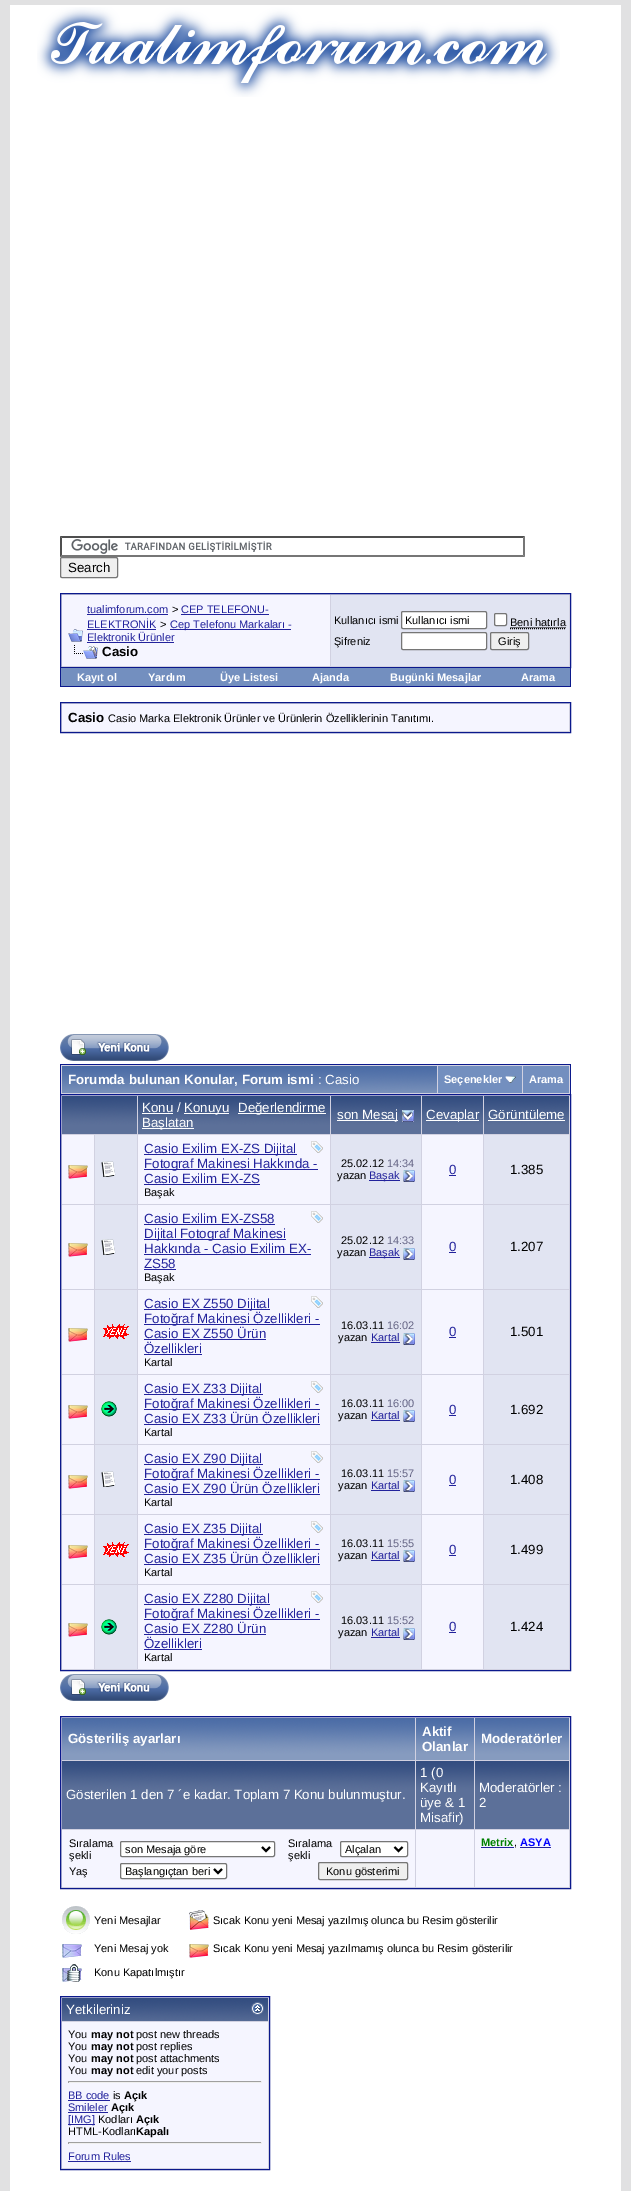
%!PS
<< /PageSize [631 2191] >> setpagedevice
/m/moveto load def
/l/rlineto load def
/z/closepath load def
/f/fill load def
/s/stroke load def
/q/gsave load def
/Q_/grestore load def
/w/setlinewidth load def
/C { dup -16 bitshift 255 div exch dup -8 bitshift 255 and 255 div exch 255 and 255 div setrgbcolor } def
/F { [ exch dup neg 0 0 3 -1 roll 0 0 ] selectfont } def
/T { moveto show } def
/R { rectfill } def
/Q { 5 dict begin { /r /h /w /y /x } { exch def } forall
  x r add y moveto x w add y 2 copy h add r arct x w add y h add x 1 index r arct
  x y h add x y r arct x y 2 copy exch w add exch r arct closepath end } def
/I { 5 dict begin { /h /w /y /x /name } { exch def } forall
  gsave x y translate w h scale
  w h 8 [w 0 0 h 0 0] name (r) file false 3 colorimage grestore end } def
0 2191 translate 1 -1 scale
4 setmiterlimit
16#E1E1E2 C
0 0 631 2191 R
16#FFFFFF C
10 5 611 2186 R
(1.rgb) 37 7 523 90 I
(2.rgb) 71 539 201 15 I
16#4F4F4F C
60 536 m 465 0 l -2 2 l -461 0 l z f
16#767676 C
525 536 m 0 21 l -2 -2 l 0 -17 l z f
525 557 m -465 0 l 2 -2 l 461 0 l z f
16#4F4F4F C
60 557 m 0 -21 l 2 2 l 0 17 l z f
16#EFEFEF C
60.5 557.5 57 20 1.5 Q q f Q_
16#767676 C
s
/LiberationSans-Regular 13.3 F
16#000000 C
(Search) 68 572 T
16#D1D1E1 C
60.5 593.5 m 510 0 l 0 74 l -510 0 l z q f Q_
16#0B198C C
s
16#F5F5FF C
62 595 268 71 R
(3.rgb) 68 629 15 13 I
/LiberationSans-Regular 11 F
16#22229C C
(tualimforum.com) 87 613 T
87 614 81 1 R
16#000000 C
(>) 172 613 T
16#22229C C
(CEP TELEFONU-) 181 613 T
181 614 88 1 R
(ELEKTRONİK) 87 628 T
87 629 69 1 R
16#000000 C
(>) 160 628 T
16#22229C C
170 629 121 1 R
(Cep Telefonu Markaları -) 170 628 T
(Elektronik Ürünler) 87 641 T
87 642 87 1 R
(4.rgb) 74 645 24 14 I
/LiberationSans-Bold 13.3 F
16#000000 C
(Casio) 102 656 T
16#E1E4F2 C
331 595 238 71 R
/LiberationSans-Regular 11 F
16#000000 C
(Kullanıcı ismi) 334 624 T
16#FFFFFF C
401.5 611.5 85 17 1.5 Q q f Q_
16#767676 C
s
16#000000 C
(Kullanıcı ismi) 405 624 T
16#FFFFFF C
494.5 613.5 12 12 1.5 Q q f Q_
16#767676 C
s
16#000000 C
(Beni hatırla) 510 626 T
[1 1] 0 setdash
510 628.5 m 56 0 l 510.5 627.5 m 55.5 0 l s
(Şifreniz) 334 645 T
16#FFFFFF C
401.5 632.5 85 17 1.5 Q q f Q_
16#767676 C
[] 0 setdash
s
16#EFEFEF C
490.5 632.5 38 17 1.5 Q q f Q_
16#767676 C
s
16#000000 C
(Giriş) 498 645 T
16#0B198C C
570 668 1 19 R
60 686 511 1 R
60 668 1 19 R
16#738FBF C
61 668 509 18 R
/LiberationSans-Bold 11 F
16#FFFFFF C
(Kayıt ol) 77 681 T
(Yardım) 148 681 T
(Üye Listesi) 220 681 T
(Ajanda) 312 681 T
(Bugünki Mesajlar) 390 681 T
(Arama) 521 681 T
16#D1D1E1 C
60.5 702.5 m 510 0 l 0 30 l -510 0 l z q f Q_
16#0B198C C
s
16#F5F5FF C
62 704 507 27 R
/LiberationSans-Bold 13.3 F
16#000000 C
(Casio) 68 722 T
/LiberationSans-Regular 11 F
(Casio Marka Elektronik Ürünler ve Ürünlerin Özelliklerinin Tanıtımı.) 108 722 T
(5.rgb) 60 1034 109 27 I
16#D1D1E1 C
61 1065 509 29 R
16#0B198C C
60 1064 511 1 R
570 1064 1 30 R
60 1064 1 30 R
(6.rgb) 62 1066 375 27 I
/LiberationSans-Bold 13.3 F
16#FFFFFF C
(Forumda bulunan Konular, Forum ismi) 68 1084 T
/LiberationSans-Regular 13.3 F
(: Casio) 318 1084 T
16#738FBF C
438 1066 84 27 R
/LiberationSans-Bold 11 F
16#FFFFFF C
(Seçenekler) 444 1083 T
(7.rgb) 505 1076 11 7 I
16#738FBF C
523 1066 46 27 R
16#FFFFFF C
(Arama) 529 1083 T
16#D1D1E1 C
60.5 1094.5 m 510 0 l 0 576 l -510 0 l z q f Q_
16#0B198C C
s
(8.rgb) 62 1096 75 38 I
(9.rgb) 138 1096 192 38 I
/LiberationSans-Regular 13.3 F
16#FFFFFF C
(Konu /) 142 1112 T
142 1113 31 1 R
184 1113 45 1 R
(Konuyu) 184 1112 T
238 1113 88 1 R
(Değerlendirme) 238 1112 T
142 1128 52 1 R
(Başlatan) 142 1127 T
(10.rgb) 331 1096 90 38 I
337 1120 61 1 R
(son Mesaj) 337 1119 T
(11.rgb) 402 1110 12 12 I
(12.rgb) 422 1096 61 38 I
426 1120 53 1 R
(Cevaplar) 426 1119 T
(13.rgb) 484 1096 85 38 I
(Görüntüleme) 488 1119 T
488 1120 77 1 R
16#F5F5FF C
62 1135 32 69 R
(14.rgb) 68 1165 20 14 I
16#E1E4F2 C
95 1135 42 69 R
(15.rgb) 101 1161 15 16 I
16#F5F5FF C
138 1135 192 69 R
16#22229C C
144 1154 153 1 R
(Casio Exilim EX-ZS Dijital) 144 1153 T
(16.rgb) 311 1141 12 12 I
144 1169 174 1 R
(Fotograf Makinesi Hakkında -) 144 1168 T
(Casio Exilim EX-ZS) 144 1183 T
144 1184 116 1 R
/LiberationSans-Regular 11 F
16#000000 C
(Başak) 144 1196 T
16#E1E4F2 C
331 1135 90 69 R
16#000000 C
(25.02.12) 341 1167 T
16#666686 C
(14:34) 387 1167 T
16#000000 C
(yazan) 337 1179 T
16#22229C C
369 1180 31 1 R
(Başak) 369 1179 T
(17.rgb) 403 1170 12 12 I
16#F5F5FF C
422 1135 61 69 R
/LiberationSans-Regular 13.3 F
16#22229C C
(0) 449 1174 T
449 1175 7 1 R
16#E1E4F2 C
484 1135 85 69 R
16#000000 C
(1.385) 510 1174 T
16#F5F5FF C
62 1205 32 84 R
(14.rgb) 68 1243 20 14 I
16#E1E4F2 C
95 1205 42 84 R
(15.rgb) 101 1239 15 16 I
16#F5F5FF C
138 1205 192 84 R
16#22229C C
(Casio Exilim EX-ZS58) 144 1223 T
144 1224 131 1 R
(16.rgb) 311 1211 12 12 I
144 1239 142 1 R
(Dijital Fotograf Makinesi) 144 1238 T
(Hakkında - Casio Exilim EX-) 144 1253 T
144 1254 167 1 R
(ZS58) 144 1268 T
144 1269 32 1 R
/LiberationSans-Regular 11 F
16#000000 C
(Başak) 144 1281 T
16#E1E4F2 C
331 1205 90 84 R
16#000000 C
(25.02.12) 341 1244 T
16#666686 C
(14:33) 387 1244 T
16#000000 C
(yazan) 337 1256 T
16#22229C C
369 1257 31 1 R
(Başak) 369 1256 T
(17.rgb) 403 1248 12 12 I
16#F5F5FF C
422 1205 61 84 R
/LiberationSans-Regular 13.3 F
16#22229C C
(0) 449 1251 T
449 1252 7 1 R
16#E1E4F2 C
484 1205 85 84 R
16#000000 C
(1.207) 510 1251 T
16#F5F5FF C
62 1290 32 84 R
(14.rgb) 68 1328 20 14 I
16#E1E4F2 C
95 1290 42 84 R
(18.rgb) 103 1324 26 15 I
16#F5F5FF C
138 1290 192 84 R
16#22229C C
144 1309 126 1 R
(Casio EX Z550 Dijital) 144 1308 T
(16.rgb) 311 1296 12 12 I
144 1324 176 1 R
(Fotoğraf Makinesi Özellikleri -) 144 1323 T
(Casio EX Z550 Ürün) 144 1338 T
144 1339 122 1 R
(Özellikleri) 144 1353 T
144 1354 58 1 R
/LiberationSans-Regular 11 F
16#000000 C
(Kartal) 144 1366 T
16#E1E4F2 C
331 1290 90 84 R
16#000000 C
(16.03.11) 341 1329 T
16#666686 C
(16:02) 387 1329 T
16#000000 C
(yazan) 338 1341 T
16#22229C C
(Kartal) 371 1341 T
371 1342 29 1 R
(17.rgb) 403 1333 12 12 I
16#F5F5FF C
422 1290 61 84 R
/LiberationSans-Regular 13.3 F
16#22229C C
(0) 449 1336 T
449 1337 7 1 R
16#E1E4F2 C
484 1290 85 84 R
16#000000 C
(1.501) 510 1336 T
16#F5F5FF C
62 1375 32 69 R
(14.rgb) 68 1405 20 14 I
16#E1E4F2 C
95 1375 42 69 R
(19.rgb) 101 1401 16 16 I
16#F5F5FF C
138 1375 192 69 R
16#22229C C
144 1394 119 1 R
(Casio EX Z33 Dijital) 144 1393 T
(16.rgb) 311 1381 12 12 I
144 1409 176 1 R
(Fotoğraf Makinesi Özellikleri -) 144 1408 T
(Casio EX Z33 Ürün Özellikleri) 144 1423 T
144 1424 176 1 R
/LiberationSans-Regular 11 F
16#000000 C
(Kartal) 144 1436 T
16#E1E4F2 C
331 1375 90 69 R
16#000000 C
(16.03.11) 341 1407 T
16#666686 C
(16:00) 387 1407 T
16#000000 C
(yazan) 338 1419 T
16#22229C C
(Kartal) 371 1419 T
371 1420 29 1 R
(17.rgb) 403 1410 12 12 I
16#F5F5FF C
422 1375 61 69 R
/LiberationSans-Regular 13.3 F
16#22229C C
(0) 449 1414 T
449 1415 7 1 R
16#E1E4F2 C
484 1375 85 69 R
16#000000 C
(1.692) 510 1414 T
16#F5F5FF C
62 1445 32 69 R
(14.rgb) 68 1475 20 14 I
16#E1E4F2 C
95 1445 42 69 R
(15.rgb) 101 1471 15 16 I
16#F5F5FF C
138 1445 192 69 R
16#22229C C
144 1464 119 1 R
(Casio EX Z90 Dijital) 144 1463 T
(16.rgb) 311 1451 12 12 I
144 1479 176 1 R
(Fotoğraf Makinesi Özellikleri -) 144 1478 T
(Casio EX Z90 Ürün Özellikleri) 144 1493 T
144 1494 176 1 R
/LiberationSans-Regular 11 F
16#000000 C
(Kartal) 144 1506 T
16#E1E4F2 C
331 1445 90 69 R
16#000000 C
(16.03.11) 341 1477 T
16#666686 C
(15:57) 387 1477 T
16#000000 C
(yazan) 338 1489 T
16#22229C C
(Kartal) 371 1489 T
371 1490 29 1 R
(17.rgb) 403 1480 12 12 I
16#F5F5FF C
422 1445 61 69 R
/LiberationSans-Regular 13.3 F
16#22229C C
(0) 449 1484 T
449 1485 7 1 R
16#E1E4F2 C
484 1445 85 69 R
16#000000 C
(1.408) 510 1484 T
16#F5F5FF C
62 1515 32 69 R
(14.rgb) 68 1545 20 14 I
16#E1E4F2 C
95 1515 42 69 R
(18.rgb) 103 1542 26 15 I
16#F5F5FF C
138 1515 192 69 R
16#22229C C
144 1534 119 1 R
(Casio EX Z35 Dijital) 144 1533 T
(16.rgb) 311 1521 12 12 I
144 1549 176 1 R
(Fotoğraf Makinesi Özellikleri -) 144 1548 T
(Casio EX Z35 Ürün Özellikleri) 144 1563 T
144 1564 176 1 R
/LiberationSans-Regular 11 F
16#000000 C
(Kartal) 144 1576 T
16#E1E4F2 C
331 1515 90 69 R
16#000000 C
(16.03.11) 341 1547 T
16#666686 C
(15:55) 387 1547 T
16#000000 C
(yazan) 338 1559 T
16#22229C C
(Kartal) 371 1559 T
371 1560 29 1 R
(17.rgb) 403 1550 12 12 I
16#F5F5FF C
422 1515 61 69 R
/LiberationSans-Regular 13.3 F
16#22229C C
(0) 449 1554 T
449 1555 7 1 R
16#E1E4F2 C
484 1515 85 69 R
16#000000 C
(1.499) 510 1554 T
16#F5F5FF C
62 1585 32 84 R
(14.rgb) 68 1623 20 14 I
16#E1E4F2 C
95 1585 42 84 R
(19.rgb) 101 1619 16 16 I
16#F5F5FF C
138 1585 192 84 R
16#22229C C
144 1604 126 1 R
(Casio EX Z280 Dijital) 144 1603 T
(16.rgb) 311 1591 12 12 I
144 1619 176 1 R
(Fotoğraf Makinesi Özellikleri -) 144 1618 T
(Casio EX Z280 Ürün) 144 1633 T
144 1634 122 1 R
(Özellikleri) 144 1648 T
144 1649 58 1 R
/LiberationSans-Regular 11 F
16#000000 C
(Kartal) 144 1661 T
16#E1E4F2 C
331 1585 90 84 R
16#000000 C
(16.03.11) 341 1624 T
16#666686 C
(15:52) 387 1624 T
16#000000 C
(yazan) 338 1636 T
16#22229C C
(Kartal) 371 1636 T
371 1637 29 1 R
(17.rgb) 403 1628 12 12 I
16#F5F5FF C
422 1585 61 84 R
/LiberationSans-Regular 13.3 F
16#22229C C
(0) 449 1631 T
449 1632 7 1 R
16#E1E4F2 C
484 1585 85 84 R
16#000000 C
(1.424) 510 1631 T
(5.rgb) 60 1674 109 27 I
16#D1D1E1 C
60.5 1716.5 m 510 0 l 0 172 l -510 0 l z q f Q_
16#0B198C C
s
(20.rgb) 62 1718 353 42 I
/LiberationSans-Bold 13.3 F
16#FFFFFF C
(Gösteriliş ayarları) 68 1743 T
(21.rgb) 416 1718 58 42 I
(Aktif) 422 1736 T
(Olanlar) 422 1751 T
(22.rgb) 475 1718 94 42 I
(Moderatörler) 481 1743 T
(23.rgb) 62 1761 353 68 I
/LiberationSans-Regular 13.3 F
(Gösterilen 1 den 7 ´e kadar. Toplam 7 Konu bulunmuştur.) 66 1799 T
(24.rgb) 416 1761 58 68 I
(1 \(0) 420 1777 T
(Kayıtlı) 420 1792 T
(üye & 1) 420 1807 T
(Misafir\)) 420 1822 T
(25.rgb) 475 1761 94 68 I
(Moderatörler :) 479 1792 T
(2) 479 1807 T
16#F5F5FF C
62 1830 353 57 R
/LiberationSans-Regular 11 F
16#000000 C
(Sıralama) 69 1847 T
(şekli) 69 1859 T
16#FFFFFF C
120.5 1841.5 154 15 1.5 Q q f Q_
16#767676 C
s
16#000000 C
2 w
262 1847 m 4 4 l 4 -4 l s
(son Mesaja göre) 125 1853 T
(Sıralama) 288 1847 T
(şekli) 288 1859 T
16#FFFFFF C
340.5 1841.5 67 15 1.5 Q q f Q_
16#767676 C
1 w
s
16#000000 C
2 w
394.5 1847 m 4 4 l 4 -4 l s
(Alçalan) 345 1853 T
(Yaş) 69 1875 T
16#FFFFFF C
120.5 1863.5 106 15 1.5 Q q f Q_
16#767676 C
1 w
s
16#000000 C
2 w
214 1869 m 4 4 l 4 -4 l s
(Başlangıçtan beri) 125 1875 T
16#EFEFEF C
318.5 1862.5 89 17 1.5 Q q f Q_
16#767676 C
1 w
s
16#000000 C
(Konu gösterimi) 326 1875 T
16#F5F5FF C
416 1830 58 57 R
475 1830 94 57 R
/LiberationSans-Bold 11 F
16#008000 C
(Metrix) 481 1846 T
16#22229C C
481 1847 33 1 R
/LiberationSans-Regular 11 F
16#000000 C
(,) 514 1846 T
/LiberationSans-Bold 11 F
16#0000FF C
(ASYA) 520 1846 T
16#22229C C
520 1847 31 1 R
(26.rgb) 62 1906 28 28 I
/LiberationSans-Regular 11 F
16#000000 C
(Yeni Mesajlar) 94 1924 T
(27.rgb) 189 1910 20 20 I
(Sıcak Konu yeni Mesaj yazılmış olunca bu Resim gösterilir) 213 1924 T
(28.rgb) 62 1944 20 14 I
(Yeni Mesaj yok) 94 1952 T
(29.rgb) 189 1944 20 14 I
(Sıcak Konu yeni Mesaj yazılmamış olunca bu Resim gösterilir) 213 1952 T
(30.rgb) 62 1964 20 18 I
(Konu Kapatılmıştır) 94 1976 T
16#D1D1E1 C
60.5 1996.5 m 209 0 l 0 173 l -209 0 l z q f Q_
16#0B198C C
s
(31.rgb) 62 1998 206 23 I
/LiberationSans-Regular 13.3 F
16#FFFFFF C
(Yetkileriniz) 66 2014 T
(32.rgb) 251 2002 13 13 I
16#F5F5FF C
62 2022 206 146 R
/LiberationSans-Regular 11 F
16#000000 C
(You) 68 2038 T
/LiberationSans-Bold 11 F
(may not) 91 2038 T
/LiberationSans-Regular 11 F
(post new threads) 136 2038 T
(You) 68 2050 T
/LiberationSans-Bold 11 F
(may not) 91 2050 T
/LiberationSans-Regular 11 F
(post replies) 136 2050 T
(You) 68 2062 T
/LiberationSans-Bold 11 F
(may not) 91 2062 T
/LiberationSans-Regular 11 F
(post attachments) 136 2062 T
(You) 68 2074 T
/LiberationSans-Bold 11 F
(may not) 91 2074 T
/LiberationSans-Regular 11 F
(edit your posts) 136 2074 T
16#9F9F9F C
68 2081 194 1 R
16#EEEEEE C
261 2081 1 2 R
68 2082 194 1 R
16#9F9F9F C
68 2081 1 2 R
16#22229C C
(BB code) 68 2099 T
68 2100 42 1 R
16#000000 C
(is) 113 2099 T
/LiberationSans-Bold 11 F
(Açık) 124 2099 T
/LiberationSans-Regular 11 F
16#22229C C
(Smileler) 68 2111 T
68 2112 40 1 R
/LiberationSans-Bold 11 F
16#000000 C
(Açık) 111 2111 T
16#22229C C
68 2124 27 1 R
/LiberationSans-Regular 11 F
([IMG]) 68 2123 T
16#000000 C
(Kodları) 98 2123 T
/LiberationSans-Bold 11 F
(Açık) 136 2123 T
/LiberationSans-Regular 11 F
(HTML-Kodları) 68 2135 T
/LiberationSans-Bold 11 F
(Kapalı) 136 2135 T
16#9F9F9F C
68 2142 194 1 R
16#EEEEEE C
261 2142 1 2 R
68 2143 194 1 R
16#9F9F9F C
68 2142 1 2 R
/LiberationSans-Regular 11 F
16#22229C C
(Forum Rules) 68 2160 T
68 2161 63 1 R
showpage
